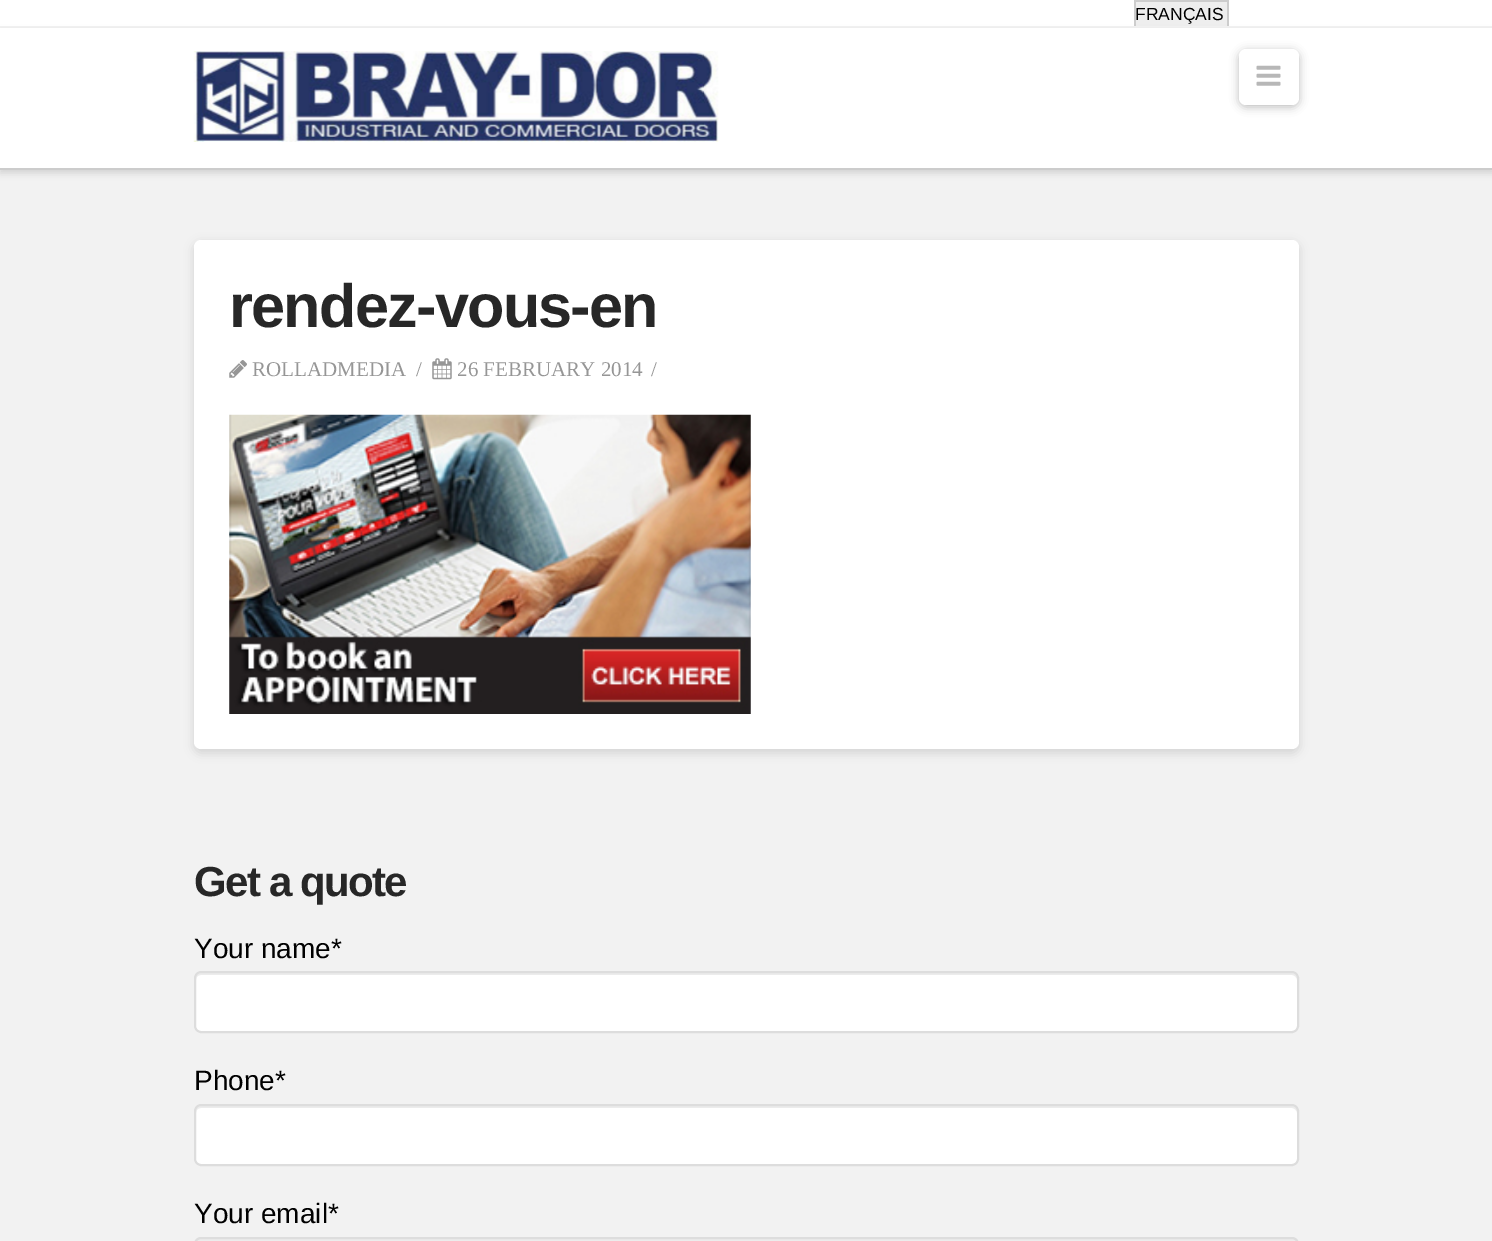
%!PS
<< /PageSize [1492 1241] /PageUsesTransparency true >> setpagedevice
/m/moveto load def
/l/rlineto load def
/c/rcurveto load def
/z/closepath load def
/f/fill load def
/s/stroke load def
/w/setlinewidth load def
/C { dup -16 bitshift 255 div exch dup -8 bitshift 255 and 255 div exch 255 and 255 div setrgbcolor } def
/F { [ exch dup neg 0 0 3 -1 roll 0 0 ] selectfont } def
/T { moveto show } def
/R { rectfill } def
/A { dup .setfillconstantalpha .setstrokeconstantalpha } def
/Q { 5 dict begin { /r /h /w /y /x } { exch def } forall
  x r add y moveto x w add y 2 copy h add r arct x w add y h add x 1 index r arct
  x y h add x y r arct x y 2 copy exch w add exch r arct closepath end } def
/S { 12 dict begin { /a /b /q /h /w /y /x } { exch def } forall gsave /was 0 def
  9 -2 -9 { dup b mul 4 div /e exch def 1 sub .425 mul 2.718 exch exp 1 add a .99 .min exch div /now exch def
    1 1 now sub 1 was sub div sub A /was now def
    w h .min e 2 mul add 0 gt { x e sub y e sub w e 2 mul add h e 2 mul add
      q e add b .6 mul add w h .min 2 div e add .min 0 .max Q fill } if } for grestore end } def
/I { 5 dict begin { /h /w /y /x /name } { exch def } forall
  gsave x y translate w h scale
  w h 8 [w 0 0 h 0 0] name (r) file false 3 colorimage grestore end } def
0 .pushpdf14devicefilter
0 1241 translate 1 -1 scale
4 setmiterlimit
16#F2F2F2 C
0 0 1492 1241 R
16#FFFFFF C
0 0 1492 26 R
16#EEEEEE C
1136 2 91 24 R
16#CDCDCD C
1134 0 95 2 R
1227 0 2 26 R
1134 0 2 26 R
/LiberationSans-Regular 17.5 F
16#000000 C
(FRANÇAIS) 1135 20 T
0 32 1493 141 0 3.5 .13 S
16#FFFFFF C
0 28 1492 140 R
16#CCCCCC C
0 168 1492 2 R
(1.rgb) 193 51 526 91 I
16#000000 C
1239 51 60 56 7 4.5 .25 S
16#FFFFFF C
1239 49 60 56 7 Q f
(2.rgb) 1256 65 25 21 I
16#000000 C
194 243 1105 510 7 5 .13 S
16#FFFFFF C
194 240 1105 509 7 Q f
/LiberationSans-Bold 61.25 F
16#272727 C
229 327 m -1.75 0 (rendez-vous-en) ashow
(3.rgb) 229 360 18 18 I
/LiberationSerif-Regular 21 F
16#969696 C
(ROLLADMEDIA) 252 376 T
(/) 416 376 T
(4.rgb) 432 358 20 22 I
(26 FEBRUARY 2014) 457 376 T
(/) 651 376 T
(5.rgb) 229 414 522 300 I
/LiberationSans-Bold 42 F
16#272727 C
194 896 m -1.75 0 (Get a quote) ashow
/LiberationSans-Regular 28 F
16#000000 C
(Your name*) 194 958 T
16#FFFFFF C
194 971 1105 62 7 Q f
16#ECECEC C
201 975 m 1091 0 l 2 0 5 2 5 5 c 0 -2 l 0 -3 -2 -5 -5 -5 c -1091 0 l -3 0 -5 2 -5 5 c 0 2 l 0 -3 2 -5 5 -5 c z f
16#DDDDDD C
2 w
195 972 1103 60 6 Q s
16#000000 C
(Phone*) 194 1090 T
16#FFFFFF C
194 1104 1105 62 7 Q f
16#ECECEC C
201 1108 m 1091 0 l 2 0 5 2 5 5 c 0 -2 l 0 -3 -2 -5 -5 -5 c -1091 0 l -3 0 -5 2 -5 5 c 0 2 l 0 -3 2 -5 5 -5 c z f
16#DDDDDD C
195 1105 1103 60 6 Q s
16#000000 C
(Your email*) 194 1223 T
16#ECECEC C
201 1241 m 1091 0 l 2 0 5 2 5 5 c 0 -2 l 0 -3 -2 -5 -5 -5 c -1091 0 l -3 0 -5 2 -5 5 c 0 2 l 0 -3 2 -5 5 -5 c z f
16#DDDDDD C
195 1238 1103 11 6 Q s
.poppdf14devicefilter showpage
